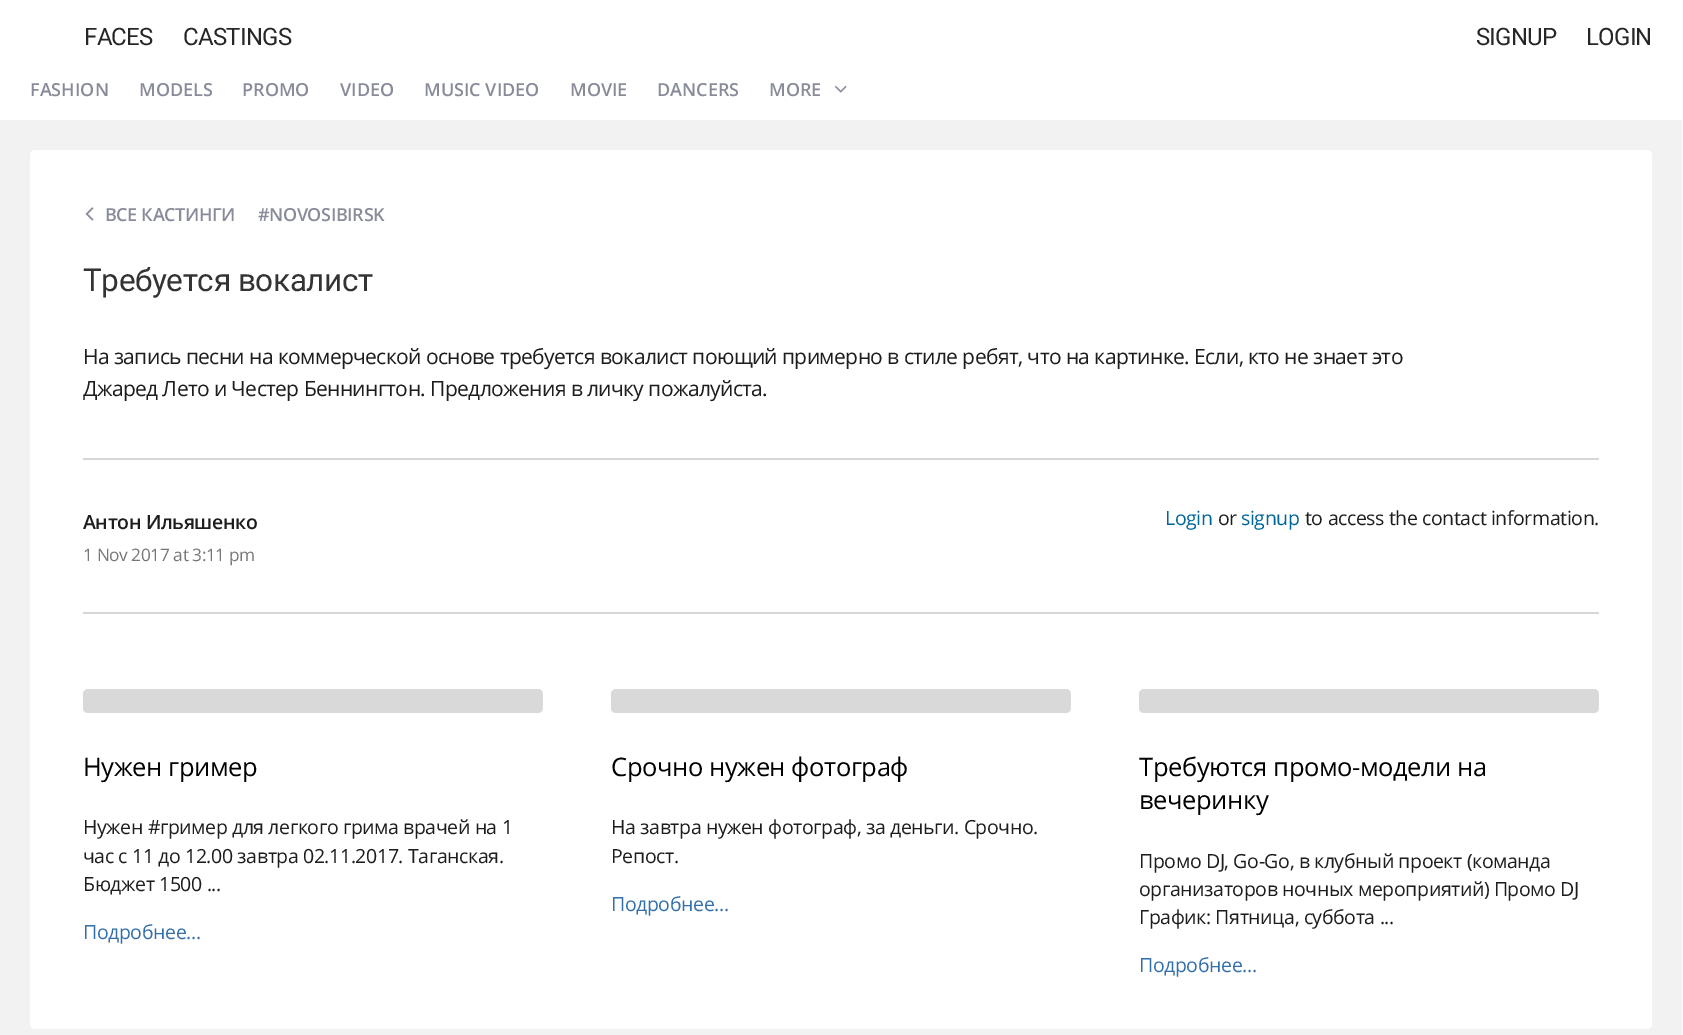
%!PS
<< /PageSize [1683 1035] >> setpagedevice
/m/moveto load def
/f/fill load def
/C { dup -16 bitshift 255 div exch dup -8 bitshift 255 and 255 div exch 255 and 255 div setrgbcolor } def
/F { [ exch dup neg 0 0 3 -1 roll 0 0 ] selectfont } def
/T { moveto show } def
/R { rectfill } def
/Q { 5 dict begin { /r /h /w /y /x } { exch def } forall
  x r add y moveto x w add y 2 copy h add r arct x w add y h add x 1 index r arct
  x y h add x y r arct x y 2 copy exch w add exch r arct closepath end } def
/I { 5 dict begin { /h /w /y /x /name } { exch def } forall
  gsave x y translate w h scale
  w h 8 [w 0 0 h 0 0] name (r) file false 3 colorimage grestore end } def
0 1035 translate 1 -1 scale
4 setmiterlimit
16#FFFFFF C
0 0 1683 1035 R
/Roboto-Regular 24 F
16#262626 C
84 45 m -.75 0 (FACES) ashow
183 45 m -.75 0 (CASTINGS) ashow
1476 45 m -.75 0 (SIGNUP) ashow
1586 45 m -.75 0 (LOGIN) ashow
/OpenSans-SemiBold 18 F
16#888B9A C
(FASHION) 30 96 T
(MODELS) 139 96 T
(PROMO) 242 96 T
(VIDEO) 340 96 T
(MUSIC VIDEO) 424 96 T
(MOVIE) 570 96 T
(DANCERS) 657 96 T
(MORE) 769 96 T
(1.rgb) 835 85 12 8 I
16#F2F2F2 C
0 120 1682 915 R
16#FFFFFF C
30 150 1622 879 5 Q f
(2.rgb) 85 207 9 14 I
16#888B9A C
105 221 m -.4 0 (ВСЕ КАСТИНГИ) ashow
258 221 m -.4 0 (#NOVOSIBIRSK) ashow
/Roboto-Regular 31.5 F
16#333333 C
83 291 m -.4 0 (Требуется вокалист) ashow
/OpenSans-Regular 21 F
16#1D1D1E C
83 364 m -.6 0 (На запись песни на коммерческой основе требуется вокалист поющий примерно в стиле ребят, что на картинке. Если, кто не знает это) ashow
83 396 m -.6 0 (Джаред Лето и Честер Беннингтон. Предложения в личку пожалуйста.) ashow
16#D6D6D6 C
83 458 1516 2 R
/OpenSans-SemiBold 19.5 F
16#1D1D1E C
83 529 m -.4 0 (Антон Ильяшенко) ashow
/OpenSans-Regular 17.25 F
16#777777 C
83 561 m -.4 0 (1 Nov 2017 at 3:11 pm) ashow
/OpenSans-Regular 19.5 F
16#006598 C
1165 525 m -.4 0 (Login) ashow
16#1D1D1E C
1218 525 m -.4 0 (or) ashow
16#006598 C
1241 525 m -.4 0 (signup) ashow
16#1D1D1E C
1305 525 m -.4 0 (to access the contact information.) ashow
16#D6D6D6 C
83 612 1516 2 R
16#D9D9D9 C
83 689 460 24 5 Q f
/OpenSans-Regular 25.5 F
16#000000 C
83 776 m -.4 0 (Нужен гример) ashow
/OpenSans-Regular 19.5 F
16#1D1D1E C
83 834 m -.4 0 (Нужен #гример для легкого грима врачей на 1) ashow
83 863 m -.4 0 (час с 11 до 12.00 завтра 02.11.2017. Таганская.) ashow
83 891 m -.4 0 (Бюджет 1500 ...) ashow
16#336FA8 C
83 939 m -.4 0 (Подробнее...) ashow
16#D9D9D9 C
611 689 460 24 5 Q f
/OpenSans-Regular 25.5 F
16#000000 C
611 776 m -.4 0 (Срочно нужен фотограф) ashow
/OpenSans-Regular 19.5 F
16#1D1D1E C
611 834 m -.4 0 (На завтра нужен фотограф, за деньги. Срочно.) ashow
611 863 m -.4 0 (Репост.) ashow
16#336FA8 C
611 911 m -.4 0 (Подробнее...) ashow
16#D9D9D9 C
1139 689 460 24 5 Q f
/OpenSans-Regular 25.5 F
16#000000 C
1139 776 m -.4 0 (Требуются промо-модели на) ashow
1139 809 m -.4 0 (вечеринку) ashow
/OpenSans-Regular 19.5 F
16#1D1D1E C
1139 868 m -.4 0 (Промо DJ, Go-Go, в клубный проект \(команда) ashow
1139 896 m -.4 0 (организаторов ночных мероприятий\) Промо DJ) ashow
1139 924 m -.4 0 (График: Пятница, суббота ...) ashow
16#336FA8 C
1139 972 m -.4 0 (Подробнее...) ashow
showpage
